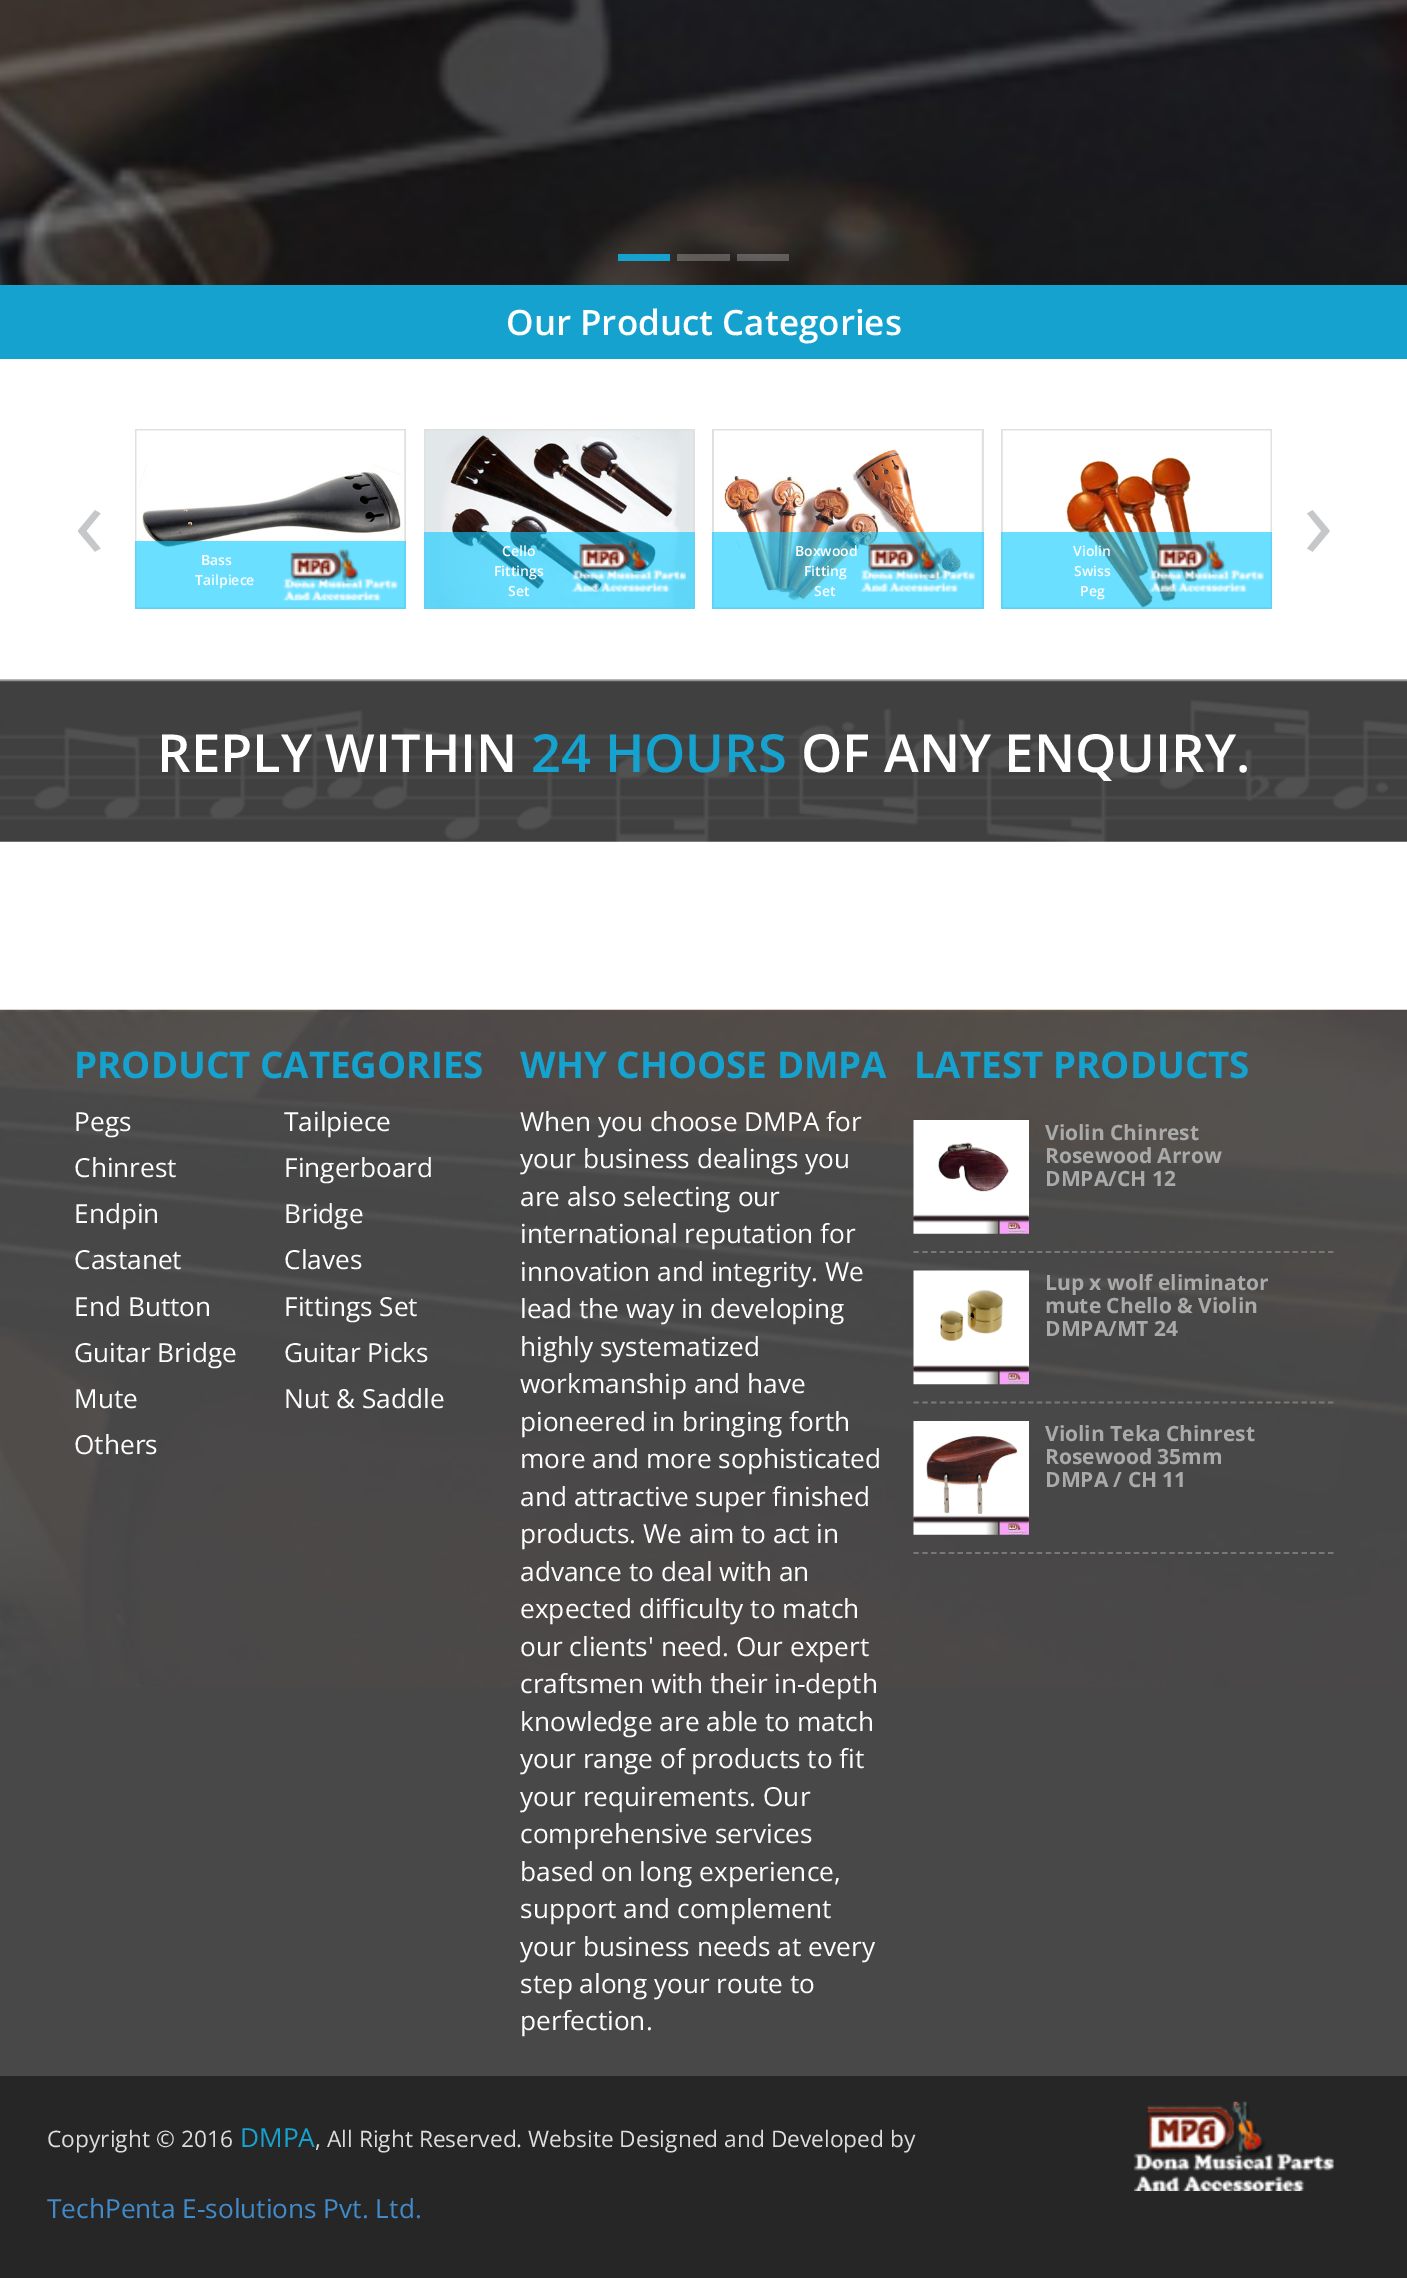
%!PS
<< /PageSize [1407 2278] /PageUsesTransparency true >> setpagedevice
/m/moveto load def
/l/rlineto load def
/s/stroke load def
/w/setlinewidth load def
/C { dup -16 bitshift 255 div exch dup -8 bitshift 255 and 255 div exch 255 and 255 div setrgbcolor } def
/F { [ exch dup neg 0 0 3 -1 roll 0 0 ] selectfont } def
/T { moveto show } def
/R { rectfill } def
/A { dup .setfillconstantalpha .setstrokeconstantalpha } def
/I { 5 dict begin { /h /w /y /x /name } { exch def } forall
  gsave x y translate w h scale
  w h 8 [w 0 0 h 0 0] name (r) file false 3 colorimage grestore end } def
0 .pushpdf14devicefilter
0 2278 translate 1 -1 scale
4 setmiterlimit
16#FFFFFF C
0 0 1407 2278 R
(1.rgb) 0 0 1407 285 I
16#15A2CE C
618 254 52 7 R
0.3 A
16#DDDDDD C
677 254 53 7 R
737 254 52 7 R
1 A
16#15A2CE C
0 285 1407 74 R
/OpenSans-SemiBold 35 F
16#FFFFFF C
(Our Product Categories) 506 335 T
/OpenSans-Regular 102 F
16#C6C7C8 C
(‹) 74 558 T
(›) 1303 558 T
16#DFE0E1 C
135 429 271 180 R
(2.rgb) 136 430 269 178 I
0.6 A
16#08CAFF C
135 541 271 68 R
/OpenSans-SemiBold 14 F
1 A
16#FFFFFF C
(Bass) 201 565 T
(Tailpiece) 195 585 T
(3.rgb) 283 549 115 52 I
16#DFE0E1 C
424 429 271 180 R
(4.rgb) 425 430 268 178 I
0.6 A
16#08CAFF C
424 532 271 77 R
1 A
16#FFFFFF C
(Cello) 502 556 T
(Fittings) 494 576 T
(Set) 508 596 T
(5.rgb) 572 540 114 52 I
16#DFE0E1 C
712 429 272 180 R
(6.rgb) 714 430 268 178 I
0.6 A
16#08CAFF C
712 532 272 77 R
1 A
16#FFFFFF C
(Boxwood) 795 556 T
(Fitting) 804 576 T
(Set) 814 596 T
(7.rgb) 861 540 114 52 I
16#DFE0E1 C
1001 429 271 180 R
(8.rgb) 1002 430 269 178 I
0.6 A
16#08CAFF C
1001 532 271 77 R
1 A
16#FFFFFF C
(Violin) 1073 556 T
(Swiss) 1074 576 T
(Peg) 1080 596 T
(9.rgb) 1149 540 115 52 I
(10.rgb) 0 679 1407 163 I
/OpenSans-SemiBold 52.5 F
(REPLY WITHIN) 157 772 T
16#15A2CE C
(24 HOURS) 531 772 T
16#FFFFFF C
(OF ANY ENQUIRY.) 801 772 T
16#494849 C
0 1687 1407 389 R
(11.rgb) 0 1009 1407 678 I
/OpenSans-Bold 36.75 F
16#15A2CE C
(PRODUCT CATEGORIES) 74 1078 T
/OpenSans-Regular 26.25 F
16#FFFFFF C
(Pegs) 74 1131 T
(Tailpiece) 284 1131 T
(Chinrest) 74 1177 T
(Fingerboard) 284 1177 T
(Endpin) 74 1223 T
(Bridge) 284 1223 T
(Castanet) 74 1269 T
(Claves) 284 1269 T
(End Button) 74 1316 T
(Fittings Set) 284 1316 T
(Guitar Bridge) 74 1362 T
(Guitar Picks) 284 1362 T
(Mute) 74 1408 T
(Nut & Saddle) 284 1408 T
(Others) 74 1454 T
/OpenSans-Bold 36.75 F
16#15A2CE C
(WHY CHOOSE DMPA) 520 1078 T
/OpenSans-Regular 26.25 F
16#FFFFFF C
(When you choose DMPA for) 520 1131 T
(your business dealings you) 520 1168 T
(are also selecting our) 520 1206 T
(international reputation for) 520 1243 T
(innovation and integrity. We) 520 1281 T
(lead the way in developing) 520 1318 T
(highly systematized) 520 1356 T
(workmanship and have) 520 1393 T
(pioneered in bringing forth) 520 1431 T
(more and more sophisticated) 520 1468 T
(and attractive super finished) 520 1506 T
(products. We aim to act in) 520 1543 T
(advance to deal with an) 520 1581 T
(expected difficulty to match) 520 1618 T
(our clients' need. Our expert) 520 1656 T
(craftsmen with their in-depth) 520 1693 T
(knowledge are able to match) 520 1731 T
(your range of products to fit) 520 1768 T
(your requirements. Our) 520 1806 T
(comprehensive services) 520 1843 T
(based on long experience,) 520 1881 T
(support and complement) 520 1918 T
(your business needs at every) 520 1956 T
(step along your route to) 520 1993 T
(perfection.) 520 2030 T
/OpenSans-Bold 36.75 F
16#15A2CE C
(LATEST PRODUCTS) 914 1078 T
16#797876 C
1.8 w
[5.25 3.57] 0 setdash
913.5 1252 m 420 0 l s
(12.rgb) 913 1120 116 114 I
/OpenSans-Bold 21 F
16#AAAAAA C
(Violin Chinrest) 1045 1140 T
(Rosewood Arrow) 1045 1163 T
(DMPA/CH 12) 1045 1186 T
16#797876 C
913.5 1402.5 m 420 0 l s
(13.rgb) 913 1270 116 115 I
16#AAAAAA C
(Lup x wolf eliminator) 1045 1290 T
(mute Chello & Violin) 1045 1313 T
(DMPA/MT 24) 1045 1336 T
16#797876 C
913.5 1553 m 420 0 l s
(14.rgb) 913 1421 116 114 I
16#AAAAAA C
(Violin Teka Chinrest) 1045 1441 T
(Rosewood 35mm) 1045 1464 T
(DMPA / CH 11) 1045 1487 T
16#262626 C
0 2076 1407 202 R
/OpenSans-Regular 22.75 F
16#DDDDDD C
(Copyright © 2016) 47 2147 T
/OpenSans-Regular 26.25 F
16#15A2CE C
(DMPA) 240 2147 T
/OpenSans-Regular 22.75 F
16#DDDDDD C
(, All Right Reserved. Website Designed and Developed by) 315 2147 T
/OpenSans-Regular 26.25 F
16#428BCA C
(TechPenta E-solutions Pvt. Ltd.) 47 2218 T
(15.rgb) 1134 2101 200 90 I
.poppdf14devicefilter showpage
